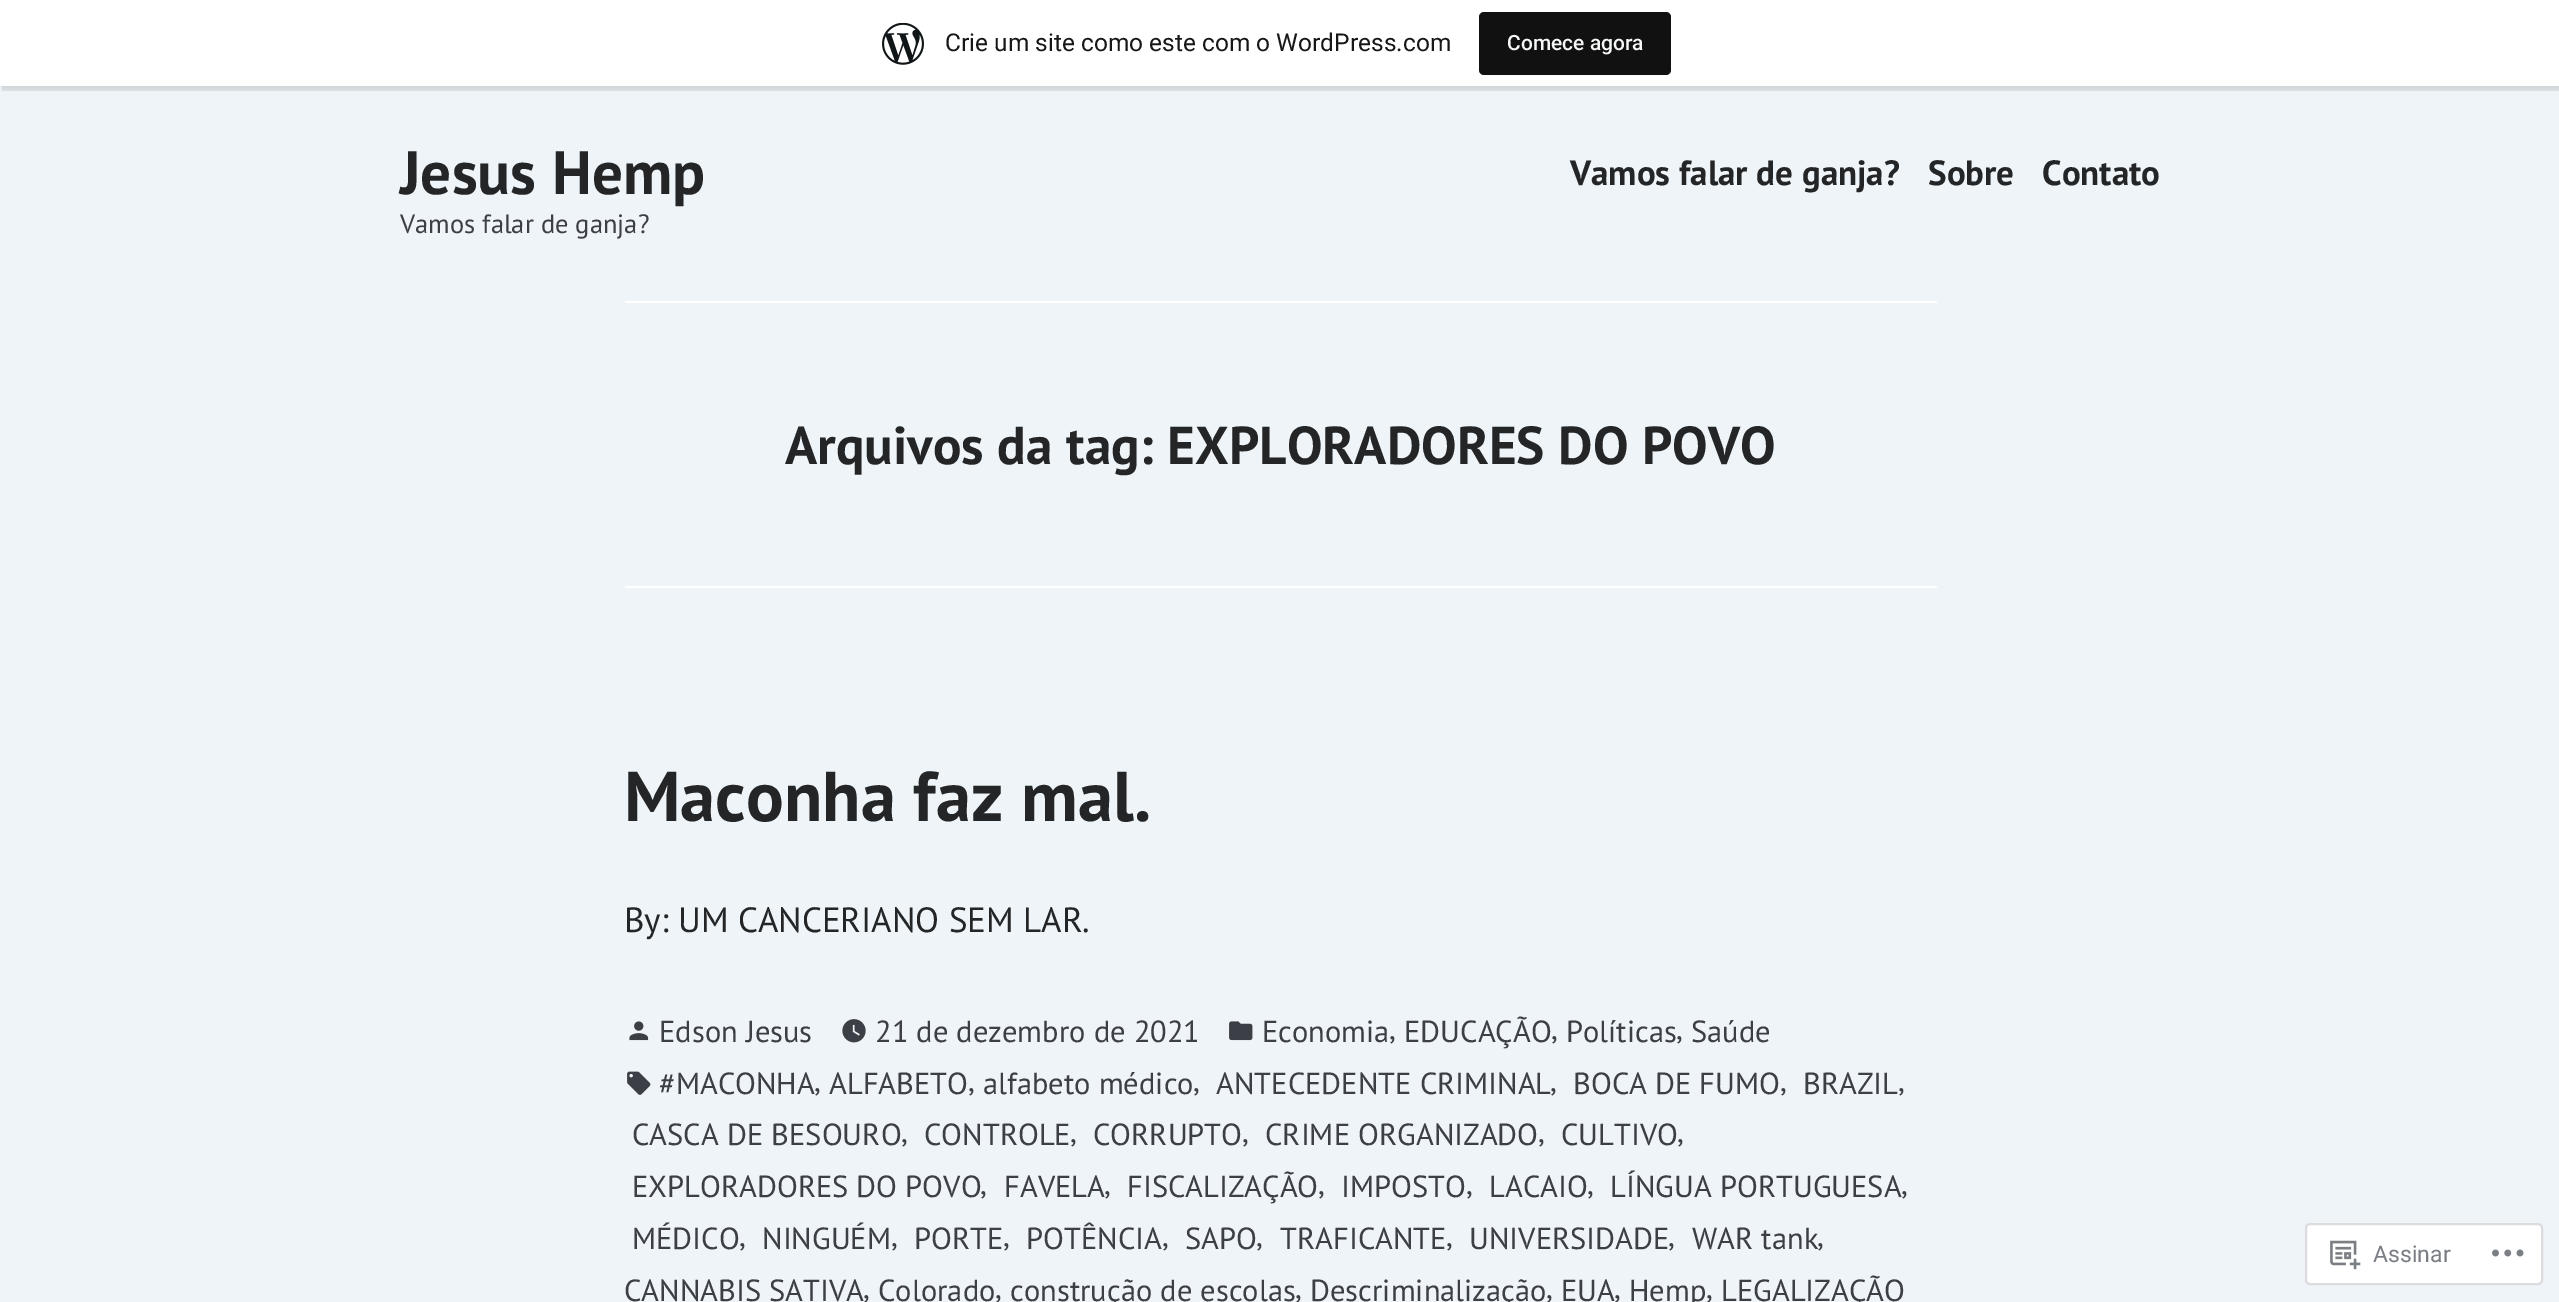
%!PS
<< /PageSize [2559 1302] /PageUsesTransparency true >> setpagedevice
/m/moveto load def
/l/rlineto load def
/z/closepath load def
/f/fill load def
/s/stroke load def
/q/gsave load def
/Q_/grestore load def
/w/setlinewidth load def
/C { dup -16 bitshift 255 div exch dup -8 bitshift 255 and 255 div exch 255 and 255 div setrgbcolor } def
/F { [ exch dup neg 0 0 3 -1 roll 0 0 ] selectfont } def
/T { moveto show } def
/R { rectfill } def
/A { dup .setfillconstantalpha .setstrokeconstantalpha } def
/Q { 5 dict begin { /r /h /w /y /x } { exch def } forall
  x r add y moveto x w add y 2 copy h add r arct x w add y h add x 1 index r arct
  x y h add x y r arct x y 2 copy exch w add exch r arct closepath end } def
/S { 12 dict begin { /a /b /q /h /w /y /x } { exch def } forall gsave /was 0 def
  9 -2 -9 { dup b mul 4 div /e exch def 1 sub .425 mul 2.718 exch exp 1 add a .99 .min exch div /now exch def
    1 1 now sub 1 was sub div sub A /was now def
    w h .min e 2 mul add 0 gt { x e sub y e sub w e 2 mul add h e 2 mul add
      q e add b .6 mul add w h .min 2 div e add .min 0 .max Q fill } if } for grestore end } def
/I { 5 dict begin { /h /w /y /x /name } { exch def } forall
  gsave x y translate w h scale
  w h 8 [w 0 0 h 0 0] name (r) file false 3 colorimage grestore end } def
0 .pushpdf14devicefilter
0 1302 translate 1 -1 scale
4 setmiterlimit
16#EEF4F7 C
0 0 2559 1302 R
16#000000 C
0 2 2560 86 0 2 .05 S
0.08 A
2 86 m 0 5 l 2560 0 l 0 -86 l -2 0 l 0 81 l z f
1 A
16#FFFFFF C
0 0 2559 86 R
(1.rgb) 882 23 42 42 I
/Roboto-Regular 24.5 F
16#171717 C
(Crie um site como este com o WordPress.com) 945 51 T
16#111111 C
1479 12 192 63 5 Q f
/Roboto-Medium 21 F
16#F6F7F7 C
(Comece agora) 1507 50 T
/PTSans-Bold 61.25 F
16#242527 C
(Jesus Hemp) 400 194 T
/PTSans-Bold 35 F
(Vamos falar de ganja?) 1570 185 T
(Sobre) 1928 185 T
(Contato) 2042 185 T
/PTSans-Regular 26.5 F
16#3C3F45 C
(Vamos falar de ganja?) 400 233 T
16#FFFFFF C
625 301 1312 2 R
/PTSans-Bold 53.25 F
16#242527 C
(Arquivos da tag: EXPLORADORES DO POVO) 785 464 T
16#FFFFFF C
625 586 1312 2 R
/PTSans-Bold 70.5 F
16#242527 C
(Maconha faz mal.) 624 821 T
/PTSans-Regular 35 F
(By: UM CANCERIANO SEM LAR.) 624 932 T
(2.rgb) 629 1021 20 20 I
/PTSans-Regular 30.5 F
16#3C3F45 C
(Edson Jesus) 659 1042 T
(3.rgb) 842 1019 24 24 I
(21 de dezembro de 2021) 875 1042 T
(4.rgb) 1229 1021 24 20 I
(Economia) 1262 1042 T
(,) 1389 1039 T
(EDUCAÇÃO) 1404 1042 T
(,) 1551 1039 T
(Políticas) 1566 1042 T
(,) 1676 1039 T
(Saúde) 1691 1042 T
(5.rgb) 627 1071 24 24 I
(#MACONHA) 659 1094 T
(,) 814 1091 T
(ALFABETO) 829 1094 T
(,) 968 1091 T
(alfabeto médico) 983 1094 T
(,) 1193 1091 T
(ANTECEDENTE CRIMINAL) 1216 1094 T
(,) 1550 1091 T
(BOCA DE FUMO) 1573 1094 T
(,) 1780 1091 T
(BRAZIL) 1803 1094 T
(,) 1898 1091 T
(CASCA DE BESOURO) 632 1145 T
(,) 901 1142 T
(CONTROLE) 924 1145 T
(,) 1070 1142 T
(CORRUPTO) 1093 1145 T
(,) 1242 1142 T
(CRIME ORGANIZADO) 1265 1145 T
(,) 1538 1142 T
(CULTIVO) 1561 1145 T
(,) 1677 1142 T
(EXPLORADORES DO POVO) 632 1197 T
(,) 980 1194 T
(FAVELA) 1004 1197 T
(,) 1104 1194 T
(FISCALIZAÇÃO) 1127 1197 T
(,) 1318 1194 T
(IMPOSTO) 1341 1197 T
(,) 1466 1194 T
(LACAIO) 1489 1197 T
(,) 1587 1194 T
(LÍNGUA PORTUGUESA) 1610 1197 T
(,) 1901 1194 T
(MÉDICO) 632 1249 T
(,) 739 1246 T
(NINGUÉM) 762 1249 T
(,) 891 1246 T
(PORTE) 914 1249 T
(,) 1003 1246 T
(POTÊNCIA) 1026 1249 T
(,) 1162 1246 T
(SAPO) 1185 1249 T
(,) 1256 1246 T
(TRAFICANTE) 1280 1249 T
(,) 1446 1246 T
(UNIVERSIDADE) 1469 1249 T
(,) 1668 1246 T
(WAR tank) 1692 1249 T
(,) 1817 1246 T
(CANNABIS SATIVA) 624 1301 T
(,) 863 1298 T
(Colorado) 878 1301 T
(,) 995 1298 T
(construção de escolas) 1010 1301 T
(,) 1295 1298 T
(Descriminalização) 1310 1301 T
(,) 1546 1298 T
(EUA) 1561 1301 T
(,) 1614 1298 T
(Hemp) 1629 1301 T
(,) 1706 1298 T
(LEGALIZAÇÃO) 1721 1301 T
16#FFFFFF C
2306 1224 236 60 4 Q q f Q_
16#DCDCDF C
2 w
s
(6.rgb) 2330 1240 31 30 I
/Roboto-Regular 23 F
16#7A7E84 C
(Assinar) 2373 1262 T
(7.rgb) 2492 1249 32 8 I
.poppdf14devicefilter showpage
